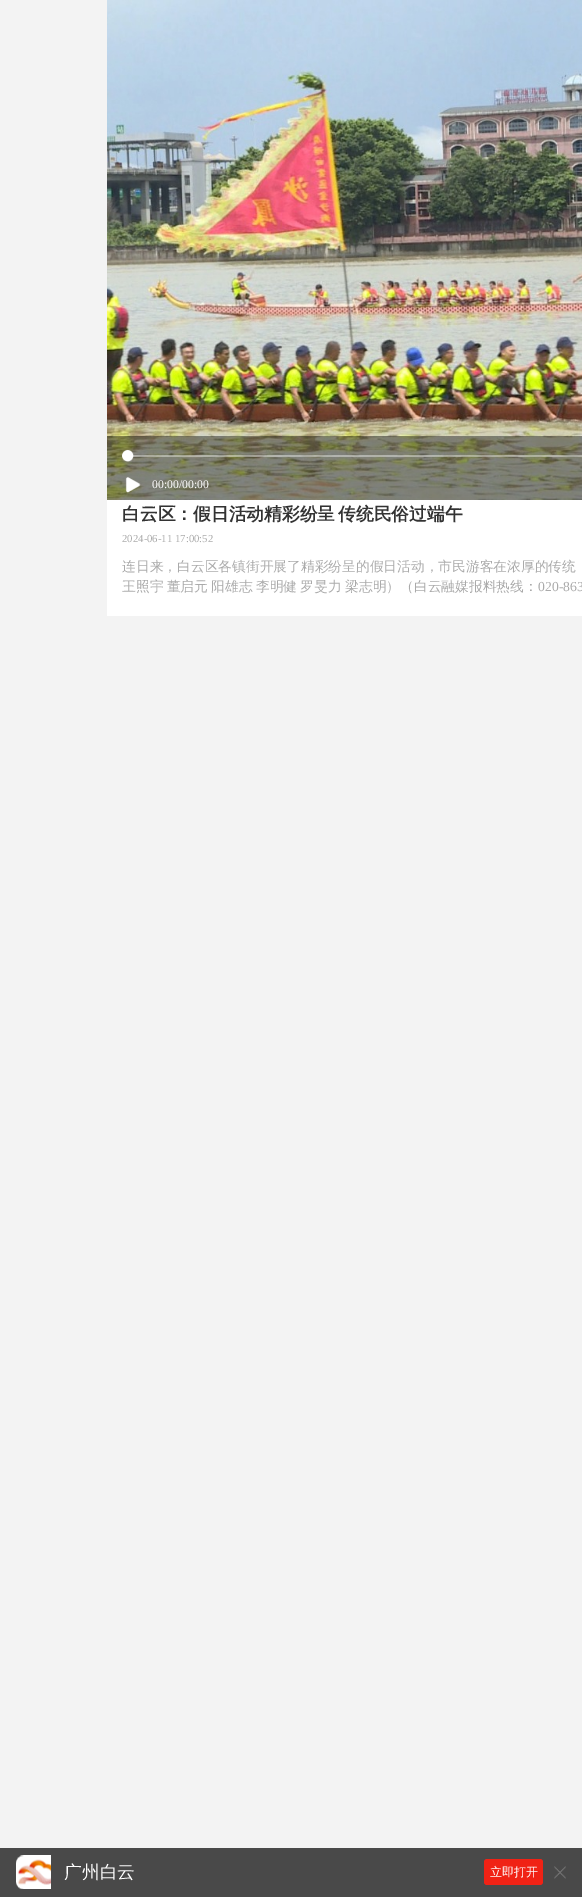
%!PS
<< /PageSize [582 1897] /PageUsesTransparency true >> setpagedevice
/m/moveto load def
/f/fill load def
/C { dup -16 bitshift 255 div exch dup -8 bitshift 255 and 255 div exch 255 and 255 div setrgbcolor } def
/F { [ exch dup neg 0 0 3 -1 roll 0 0 ] selectfont } def
/T { moveto show } def
/R { rectfill } def
/A { dup .setfillconstantalpha .setstrokeconstantalpha } def
/Q { 5 dict begin { /r /h /w /y /x } { exch def } forall
  x r add y moveto x w add y 2 copy h add r arct x w add y h add x 1 index r arct
  x y h add x y r arct x y 2 copy exch w add exch r arct closepath end } def
/I { 5 dict begin { /h /w /y /x /name } { exch def } forall
  gsave x y translate w h scale
  w h 8 [w 0 0 h 0 0] name (r) file false 3 colorimage grestore end } def
0 .pushpdf14devicefilter
0 1897 translate 1 -1 scale
4 setmiterlimit
16#F3F3F3 C
0 0 582 1897 R
16#FFFFFF C
107 500 475 116 R
(1.rgb) 107 0 475 500 I
0.4 A
16#000000 C
107 436 475 64 R
16#FFFFFF C
122 455 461 2 1 Q f
1 A
(2.rgb) 122 450 12 12 I
(3.rgb) 125 477 16 16 I
/LiberationSerif-Regular 11.75 F
(00:00/00:00) 152 488 T
/WenQuanYiZenHei-Bold 17.75 F
16#333333 C
(白云区：假日活动精彩纷呈) 122 520 T
(传统民俗过端午) 338 520 T
/LiberationSerif-Regular 10.75 F
16#AAAAAA C
(2024-06-11 17:00:52) 122 542 T
/WenQuanYiZenHei-Medium 13.75 F
122 571 m -1 0 32 (连日来，白云区各镇街开展了精彩纷呈的假日活动，市民游客在浓厚的传统) widthshow
122 591 m -.75 0 32 (王照宇 董启元 阳雄志 李明健 罗旻力 梁志明）（白云融媒报料热线：) widthshow
/LiberationSerif-Regular 13.75 F
(020-863) 538 591 T
16#494949 C
0 1848 582 49 R
(4.rgb) 16 1855 35 34 I
/WenQuanYiZenHei-Medium 17.75 F
16#FFFFFF C
(广州白云) 64 1878 T
16#F02215 C
484 1859 59 26 3 Q f
/WenQuanYiZenHei-Medium 12 F
16#FFFFFF C
(立即打开) 490 1876 T
(5.rgb) 554 1866 12 13 I
.poppdf14devicefilter showpage
